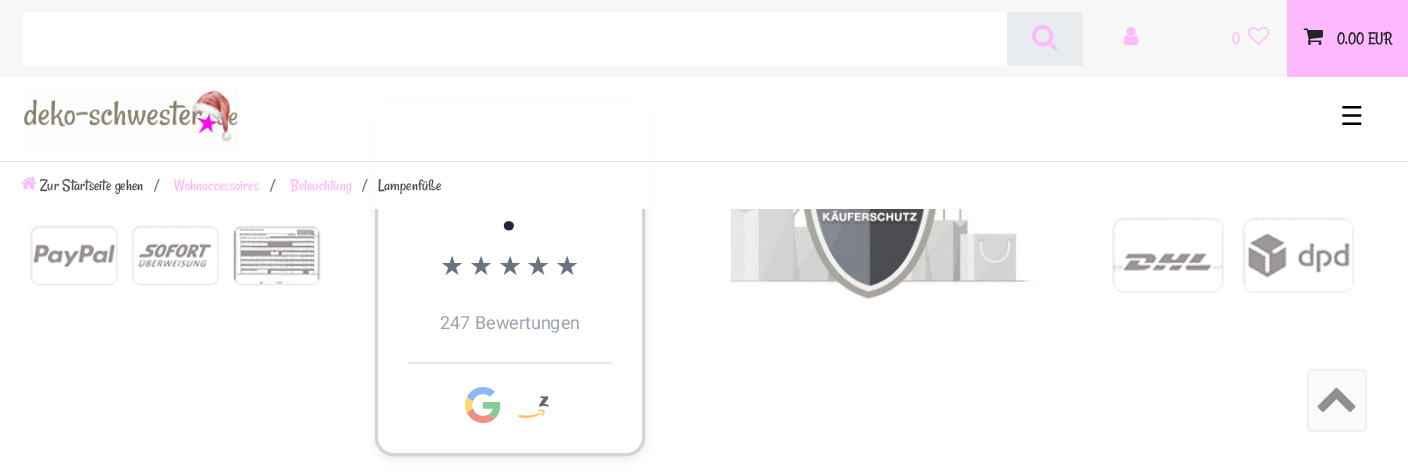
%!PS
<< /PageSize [1408 474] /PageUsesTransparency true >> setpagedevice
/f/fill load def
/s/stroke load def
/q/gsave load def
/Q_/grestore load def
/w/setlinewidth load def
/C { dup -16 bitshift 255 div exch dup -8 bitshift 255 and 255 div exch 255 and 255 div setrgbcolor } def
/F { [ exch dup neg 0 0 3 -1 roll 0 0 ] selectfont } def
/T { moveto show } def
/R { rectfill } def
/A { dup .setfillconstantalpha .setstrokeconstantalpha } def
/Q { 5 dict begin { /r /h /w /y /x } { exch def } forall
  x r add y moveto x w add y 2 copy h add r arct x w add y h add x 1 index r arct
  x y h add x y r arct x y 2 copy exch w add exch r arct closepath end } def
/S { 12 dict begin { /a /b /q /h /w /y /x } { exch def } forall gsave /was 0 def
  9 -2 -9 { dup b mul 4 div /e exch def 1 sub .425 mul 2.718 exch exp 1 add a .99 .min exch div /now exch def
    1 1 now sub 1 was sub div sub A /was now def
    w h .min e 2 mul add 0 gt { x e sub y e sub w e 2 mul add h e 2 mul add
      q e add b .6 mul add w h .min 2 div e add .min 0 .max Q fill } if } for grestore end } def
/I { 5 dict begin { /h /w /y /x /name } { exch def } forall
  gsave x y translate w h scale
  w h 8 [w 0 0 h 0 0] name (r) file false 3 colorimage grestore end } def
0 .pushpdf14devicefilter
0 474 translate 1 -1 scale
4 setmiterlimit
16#FFFFFF C
0 0 1408 474 R
16#F7F7F7 C
0 0 1287 77 R
16#FFFFFF C
23 12 984 54 R
16#E9ECEF C
1007 12 76 54 R
(1.rgb) 1032 25 26 26 I
(2.rgb) 1123 27 16 18 I
/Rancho-Regular 16.75 F
16#FFB9FF C
(0) 1232 43 T
(3.rgb) 1248 27 21 18 I
1287 0 121 77 R
(4.rgb) 1303 28 20 17 I
16#212529 C
(0,00 EUR) 1337 43 T
16#000000 C
375 105 270 354 18 4.5 .08 S
16#FFFFFF C
376.5 103.5 267 351 16.5 Q q f Q_
16#D1D5DB C
3 w
s
16#FFFFFF C
370 100 280 61 R
16#DEE2E6 C
0 161 1408 1 R
(5.rgb) 23 88 215 61 I
/DejaVuSans-Regular 26 F
16#000000 C
(☰) 1340 125 T
16#FFFFFF C
370 162 280 47 R
(6.rgb) 21 177 16 12 I
/Rancho-Regular 16.75 F
16#495057 C
(Zur Startseite gehen) 40 190 T
16#6B7280 C
(/) 154 190 T
16#FFB9FF C
(Wohnaccessoires) 174 190 T
16#6B7280 C
(/) 270 190 T
16#FFB9FF C
(Beleuchtung) 290 190 T
16#6B7280 C
(/) 362 190 T
16#495057 C
(Lampenfüße) 378 190 T
(7.rgb) 30 225 291 61 I
/Roboto-Bold 63 F
16#1F2937 C
(.) 500 230 T
/DejaVuSans-Regular 27 F
16#6B7280 C
(★) 440 275 T
(★) 469 275 T
(★) 498 275 T
(★) 526 275 T
(★) 555 275 T
/Roboto-Regular 18 F
16#9CA3AF C
(247 Bewertungen) 440 329 T
16#E5E7EB C
408 362 204 2 R
(8.rgb) 465 387 36 36 I
(9.rgb) 519 396 30 23 I
(10.rgb) 729 209 305 90 I
(11.rgb) 1112 217 242 76 I
16#FBFBFB C
1308 370 58 61 4 Q q f Q_
16#EFF1F3 C
2 w
s
(12.rgb) 1317 387 39 25 I
.poppdf14devicefilter showpage
